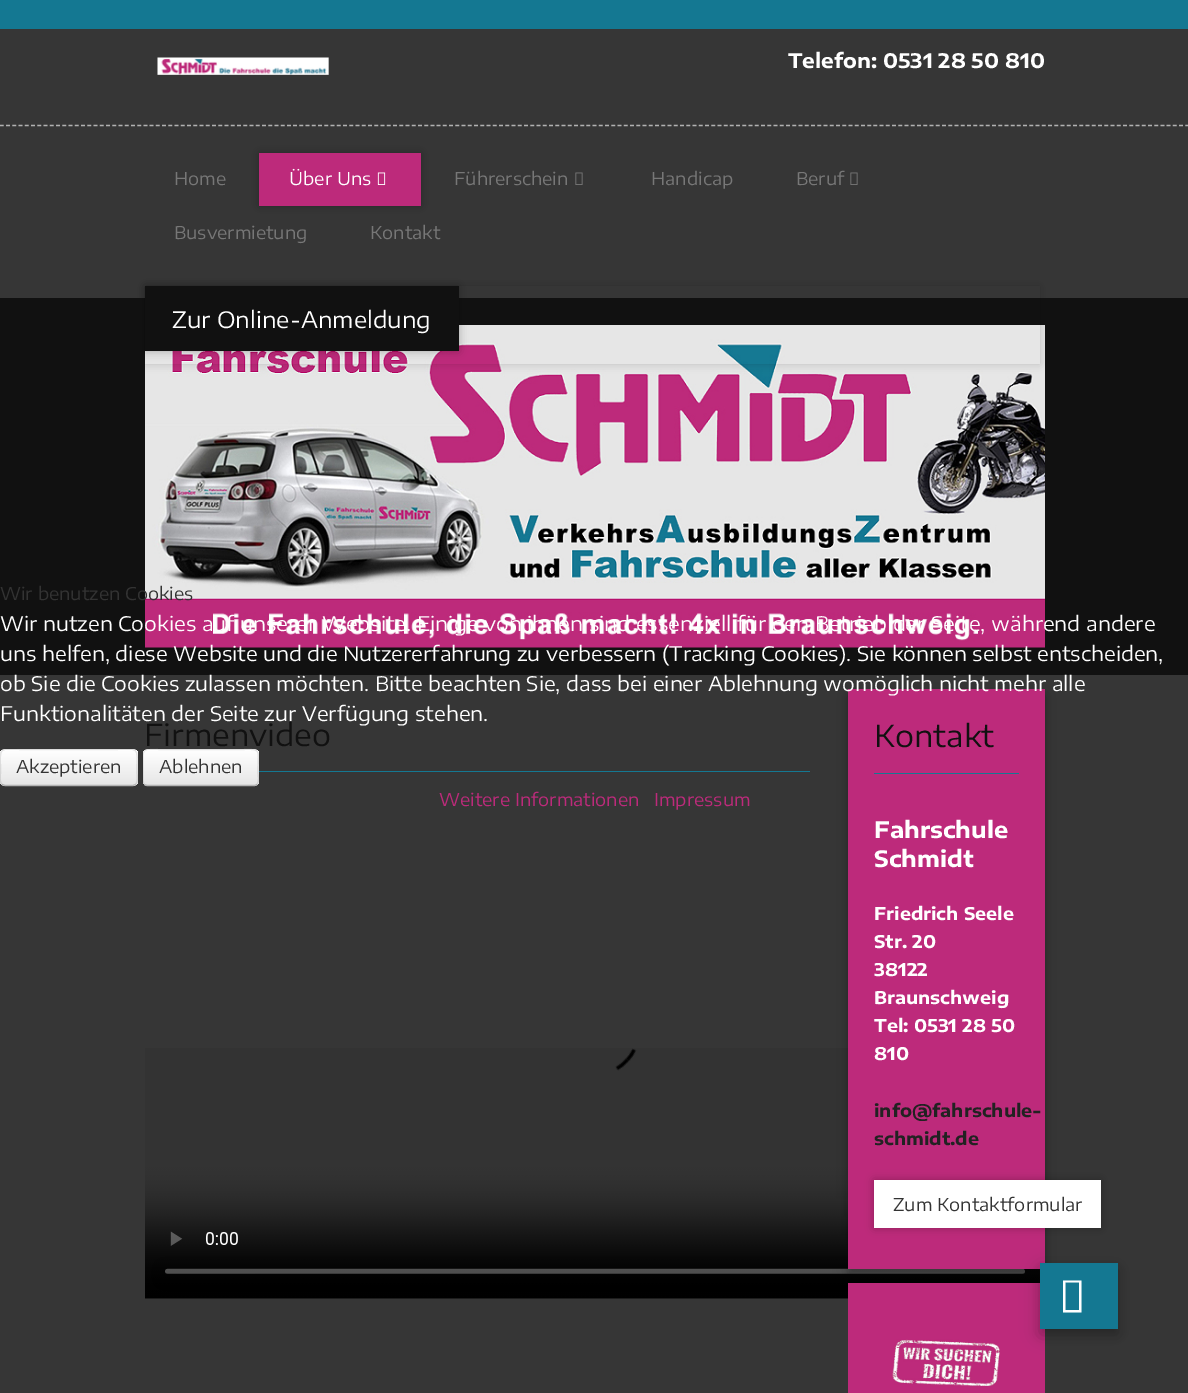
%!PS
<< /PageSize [1188 1393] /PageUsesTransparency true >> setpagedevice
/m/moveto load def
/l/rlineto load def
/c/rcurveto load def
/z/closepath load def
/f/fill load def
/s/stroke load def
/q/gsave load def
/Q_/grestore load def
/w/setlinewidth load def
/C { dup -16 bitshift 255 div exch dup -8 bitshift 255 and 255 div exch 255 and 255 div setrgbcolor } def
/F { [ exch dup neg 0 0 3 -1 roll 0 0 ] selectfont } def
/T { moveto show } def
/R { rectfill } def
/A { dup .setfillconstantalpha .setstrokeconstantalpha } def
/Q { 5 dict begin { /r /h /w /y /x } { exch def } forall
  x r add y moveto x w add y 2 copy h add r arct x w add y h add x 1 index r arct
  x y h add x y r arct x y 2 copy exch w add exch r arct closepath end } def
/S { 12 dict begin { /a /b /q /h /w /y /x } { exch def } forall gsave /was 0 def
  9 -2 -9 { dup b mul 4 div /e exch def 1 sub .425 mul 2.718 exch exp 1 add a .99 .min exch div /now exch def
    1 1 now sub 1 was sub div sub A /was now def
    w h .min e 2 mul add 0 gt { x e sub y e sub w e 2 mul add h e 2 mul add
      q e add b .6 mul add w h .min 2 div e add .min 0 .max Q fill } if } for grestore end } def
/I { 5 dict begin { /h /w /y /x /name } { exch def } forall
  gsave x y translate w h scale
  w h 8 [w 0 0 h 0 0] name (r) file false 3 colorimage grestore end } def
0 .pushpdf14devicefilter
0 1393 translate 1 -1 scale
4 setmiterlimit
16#363636 C
0 0 1188 1393 R
16#147892 C
0 0 1188 29 R
(1.rgb) 157 57 172 18 I
/EncodeSansExpanded-Bold 20 F
16#FFFFFF C
(Telefon: 0531 28 50 810) 788 68 T
16#B1B1B1 C
1.2 w
[3.75 2.49] 0 setdash
0 125.5 m 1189 0 l s
/EncodeSansExpanded-Regular 17.5 F
16#777777 C
(Home) 174 185 T
16#000000 C
259 153 162 53 0 4.5 .27 S
16#BD2A7B C
259 153 162 53 R
16#FFFFFF C
(Über Uns) 289 185 T
(2.rgb) 377 172 9 13 I
16#777777 C
(Führerschein) 454 185 T
(3.rgb) 575 172 8 13 I
(Handicap) 651 185 T
(Beruf) 796 185 T
(3.rgb) 850 172 8 13 I
(Busvermietung) 174 239 T
(Kontakt) 370 239 T
16#111111 C
0 298 1188 377 R
(4.rgb) 145 325 900 323 I
q
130 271 m 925 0 l 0 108 l -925 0 l z 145 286 m 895 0 l 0 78 l -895 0 l z eoclip newpath
16#000000 C
145 286 895 78 0 4.5 .17 S
Q_
16#000000 C
145 286 314 65 0 4.5 .27 S
16#111111 C
145 286 314 65 R
/EncodeSansExpanded-Regular 22.5 F
16#FFFFFF C
(Zur Online-Anmeldung) 172 328 T
16#147892 C
259 771 551 1 R
/EncodeSansExpanded-Regular 30 F
16#111111 C
(Firmenvideo) 144 746 T
(5.rgb) 145 1048 895 251 I
16#000000 C
848 694 197 580 0 9.5 .15 S
848 695 197 580 0 4.5 .18 S
16#BD2A7B C
848 689 197 580 R
16#147892 C
874 773 145 1 R
16#111111 C
(Kontakt) 874 747 T
/EncodeSansExpanded-Bold 22.5 F
16#FFFFFF C
(Fahrschule) 874 838 T
(Schmidt) 874 867 T
/EncodeSansExpanded-Bold 17.5 F
(Friedrich Seele) 874 920 T
(Str. 20) 874 948 T
(38122) 874 976 T
(Braunschweig) 874 1004 T
(Tel: 0531 28 50) 874 1032 T
(810) 874 1060 T
16#222222 C
(info@fahrschule-) 874 1117 T
(schmidt.de) 874 1145 T
16#000000 C
874 1180 227 48 0 4.5 .27 S
16#FFFFFF C
874 1180 227 48 R
/EncodeSansExpanded-Regular 17.5 F
16#333333 C
(Zum Kontaktformular) 893 1211 T
16#BD2A7B C
848 1283 197 110 R
(6.rgb) 892 1339 108 47 I
16#000000 C
1040 1268 78 66 0 9.5 .15 S
1040 1269 78 66 0 7 .18 S
16#147892 C
1040 1263 78 66 R
16#FFFFFF C
1063 1312.5 m 0 -32 l 18.5 0 l 0 32 l z 1065.5 1310 m 13.5 0 l 0 -27.5 l -13.5 0 l z f
16#333333 C
(Wir benutzen Cookies) 0 600 T
/EncodeSansExpanded-Regular 20 F
16#FFFFFF C
(Wir nutzen Cookies auf unserer Website. Einige von ihnen sind essenziell für den Betrieb der Seite, während andere) 0 631 T
(uns helfen, diese Website und die Nutzererfahrung zu verbessern \(Tracking Cookies\). Sie können selbst entscheiden,) 0 661 T
(ob Sie die Cookies zulassen möchten. Bitte beachten Sie, dass bei einer Ablehnung womöglich nicht mehr alle) 0 691 T
(Funktionalitäten der Seite zur Verfügung stehen.) 0 721 T
16#F5F5F5 C
0 749 138 37 5 Q f
q
0 749 138 37 5 Q clip newpath
q 0 750 m 138 0 l 0 35 l -138 0 l z clip newpath
<< /ShadingType 2 /ColorSpace /DeviceRGB /Coords [69 750 69 785] /Extend [true true] /Function << /FunctionType 2 /Domain [0 1] /C0 [1 1 1] /C1 [.902 .902 .902] /N 1 >> >> shfill Q_
Q_
16#B3B3B3 C
[] 0 setdash
135.5 784.5 m -2.5 1 l -107 0 l -21 0 l -3 -1 l s
0.1 A
16#000000 C
2 784.5 m -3 -3 -1.5 -9.5 -1.5 -12.5 c 0 -27.5 -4 -22.5 25.5 -22.5 c 85 0 l 30 0 26 -5 26 22.5 c 0 3 1.5 9.5 -1.5 12.5 c s
/EncodeSansExpanded-Regular 17.5 F
1 A
16#333333 C
(Akzeptieren) 16 773 T
16#F5F5F5 C
143 749 116 37 5 Q f
q
143 749 116 37 5 Q clip newpath
q 143 750 m 116 0 l 0 35 l -116 0 l z clip newpath
<< /ShadingType 2 /ColorSpace /DeviceRGB /Coords [201 750 201 785] /Extend [true true] /Function << /FunctionType 2 /Domain [0 1] /C0 [1 1 1] /C1 [.902 .902 .902] /N 1 >> >> shfill Q_
Q_
0.2 A
16#FFFFFF C
148 751 m 106 0 l 2 0 4 2 4 4 c 0 -10 -18 -5 -22 -5 c -70 0 l -4 0 -22 -5 -22 5 c 0 -2 1 -4 4 -4 c z f
1 A
16#B3B3B3 C
257 784.5 m -1 .5 -2 1 -3 1 c -106.5 0 l -1 0 -2.5 -.5 -3 -1 c s
0.1 A
16#000000 C
144.5 784.5 m -2 -2 -1.5 -5.5 -1.5 -8 c 0 -9 l 0 -22 -2.5 -18 22 -18 c 71 0 l 27 0 22 -3.5 22 22.5 c 0 3 1.5 9.5 -1 12.5 c s
1 A
16#333333 C
(Ablehnen) 159 773 T
16#BD2A7B C
(Weitere Informationen) 439 806 T
(Impressum) 654 806 T
.poppdf14devicefilter showpage
